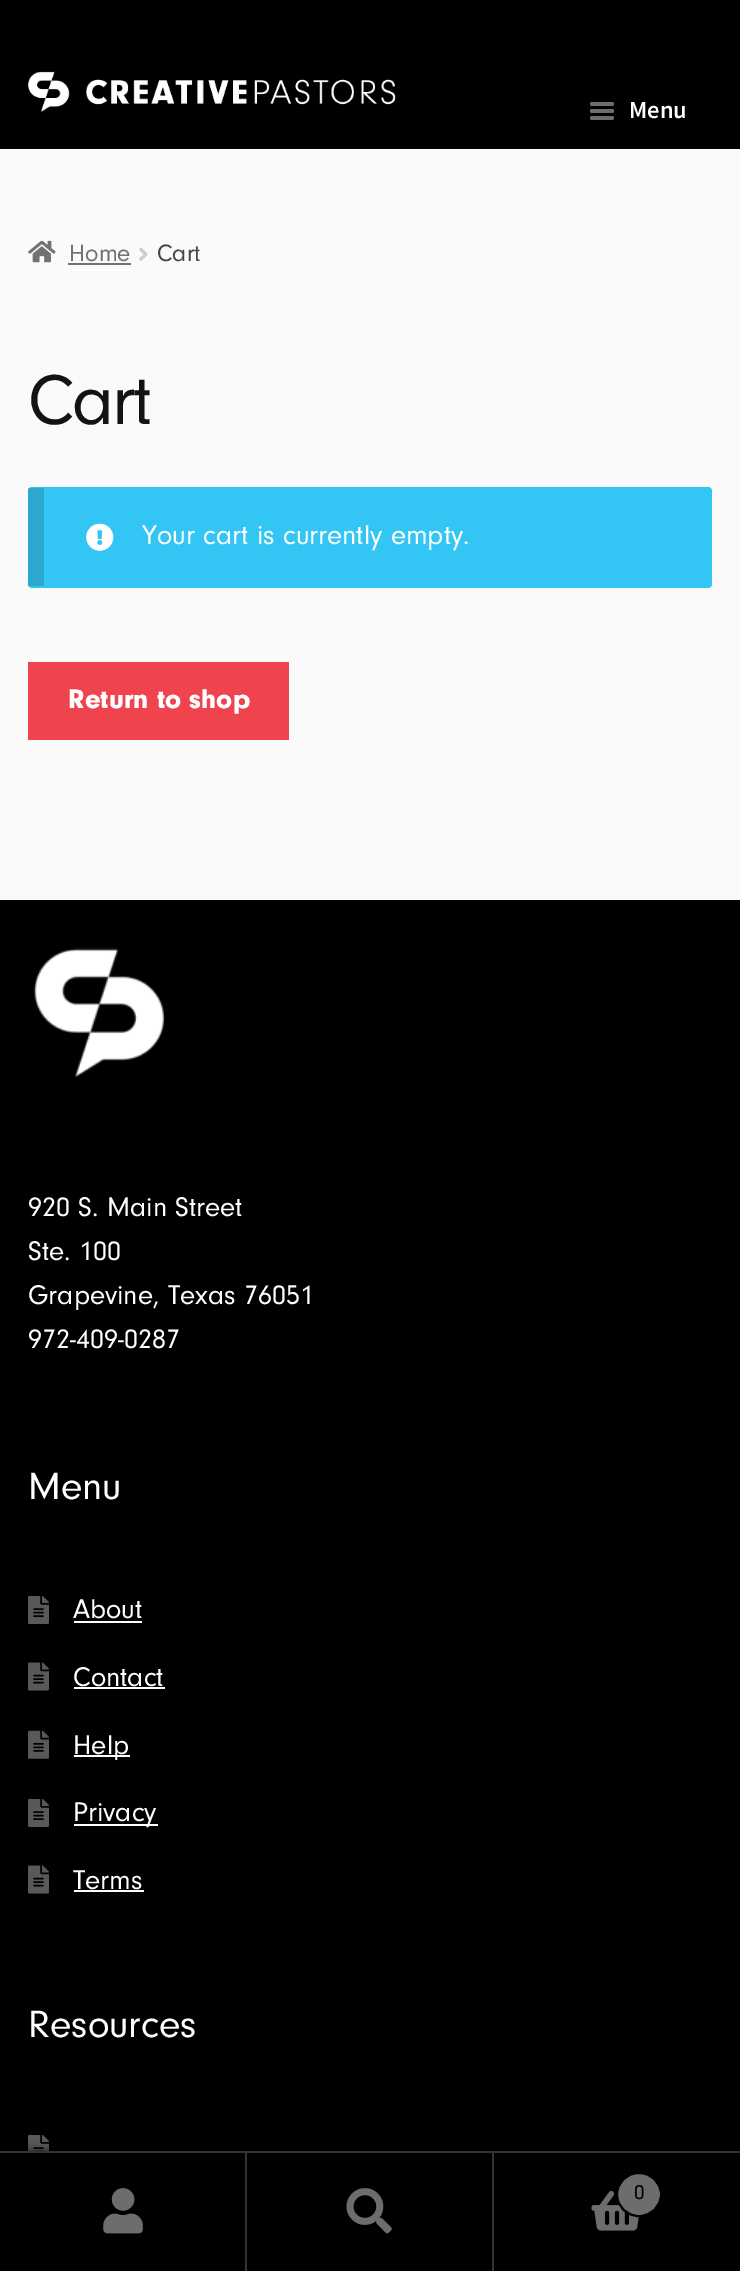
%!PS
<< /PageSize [740 2271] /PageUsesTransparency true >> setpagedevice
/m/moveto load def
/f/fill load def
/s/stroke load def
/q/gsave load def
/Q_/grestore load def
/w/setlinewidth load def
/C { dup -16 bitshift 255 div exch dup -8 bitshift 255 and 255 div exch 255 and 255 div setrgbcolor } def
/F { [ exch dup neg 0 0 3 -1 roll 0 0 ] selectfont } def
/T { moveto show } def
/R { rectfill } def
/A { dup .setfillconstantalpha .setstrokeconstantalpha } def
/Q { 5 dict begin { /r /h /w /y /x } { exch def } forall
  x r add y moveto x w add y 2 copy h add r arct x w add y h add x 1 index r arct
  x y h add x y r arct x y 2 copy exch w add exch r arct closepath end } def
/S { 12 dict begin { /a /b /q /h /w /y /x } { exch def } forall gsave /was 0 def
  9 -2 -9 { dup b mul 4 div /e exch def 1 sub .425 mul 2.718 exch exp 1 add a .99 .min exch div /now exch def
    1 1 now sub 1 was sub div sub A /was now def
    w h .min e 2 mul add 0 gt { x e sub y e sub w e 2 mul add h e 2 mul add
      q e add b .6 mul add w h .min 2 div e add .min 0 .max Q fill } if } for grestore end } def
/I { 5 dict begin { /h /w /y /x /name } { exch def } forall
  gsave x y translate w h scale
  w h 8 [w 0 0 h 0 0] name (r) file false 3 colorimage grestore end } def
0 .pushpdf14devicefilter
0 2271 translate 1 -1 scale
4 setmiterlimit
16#FAFAFA C
0 0 740 2271 R
16#000000 C
0 0 740 149 R
(1.rgb) 28 71 368 41 I
16#6D6D6D C
590 102 24 4 2 Q f
590 109 24 4 2 Q f
/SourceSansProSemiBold-SemiBold 24.5 F
16#FFFFFF C
(Menu) 629 118 T
16#6D6D6D C
590 116 24 4 2 Q f
(2.rgb) 28 240 28 23 I
/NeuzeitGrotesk-Regular 24.5 F
16#727272 C
(Home) 69 261 T
68 263 63 2 R
(3.rgb) 139 247 9 14 I
16#43454B C
(Cart) 157 261 T
/NeuzeitGrotesk-Regular 73 F
16#131315 C
28 424 m -2 0 (Cart) ashow
16#33C5F3 C
28 487 684 101 4 Q f
0.15 A
16#000000 C
28 488 16 98 R
1 A
(4.rgb) 86 523 28 28 I
/NeuzeitGrotesk-Regular 28 F
16#FFFFFF C
(Your cart is currently empty.) 142 544 T
16#EF434E C
28 662 261 78 R
/NeuzeitGrotesk-Black 28 F
16#FFFFFF C
(Return to shop) 68 708 T
16#000000 C
0 900 740 1251 R
(5.rgb) 33 948 132 130 I
/NeuzeitGrotesk-Regular 28 F
16#FFFFFF C
(920 S. Main Street) 28 1216 T
(Ste. 100) 28 1260 T
(Grapevine, Texas 76051) 28 1304 T
(972-409-0287) 28 1348 T
/NeuzeitGrotesk-Regular 39.5 F
(Menu) 28 1499 T
(6.rgb) 28 1596 21 28 I
/NeuzeitGrotesk-Regular 28 F
(About) 73 1618 T
74 1621 68 2 R
(7.rgb) 28 1662 21 29 I
(Contact) 73 1686 T
74 1687 91 2 R
(8.rgb) 28 1730 21 29 I
74 1755 56 2 R
(Help) 73 1754 T
(6.rgb) 28 1799 21 28 I
74 1824 84 2 R
(Privacy) 73 1821 T
(7.rgb) 28 1865 21 29 I
(Terms) 73 1889 T
74 1890 70 2 R
/NeuzeitGrotesk-Regular 39.5 F
(Resources) 28 2037 T
(9.rgb) 28 2135 21 16 I
16#000000 C
0 2151 740 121 0 5 .7 S
16#333333 C
0 2151 740 2 R
16#000000 C
0 2153 245 118 R
16#333333 C
245 2153 2 118 R
(10.rgb) 103 2188 40 46 I
16#000000 C
247 2153 245 118 R
16#333333 C
492 2153 2 118 R
(11.rgb) 346 2188 46 46 I
16#000000 C
494 2153 246 118 R
(12.rgb) 591 2190 48 41 I
16#6D6D6D C
617 2173 44 43 21.5 Q q f Q_
16#000000 C
2 w
s
/NeuzeitGrotesk-Regular 21 F
(0) 634 2199 T
.poppdf14devicefilter showpage
